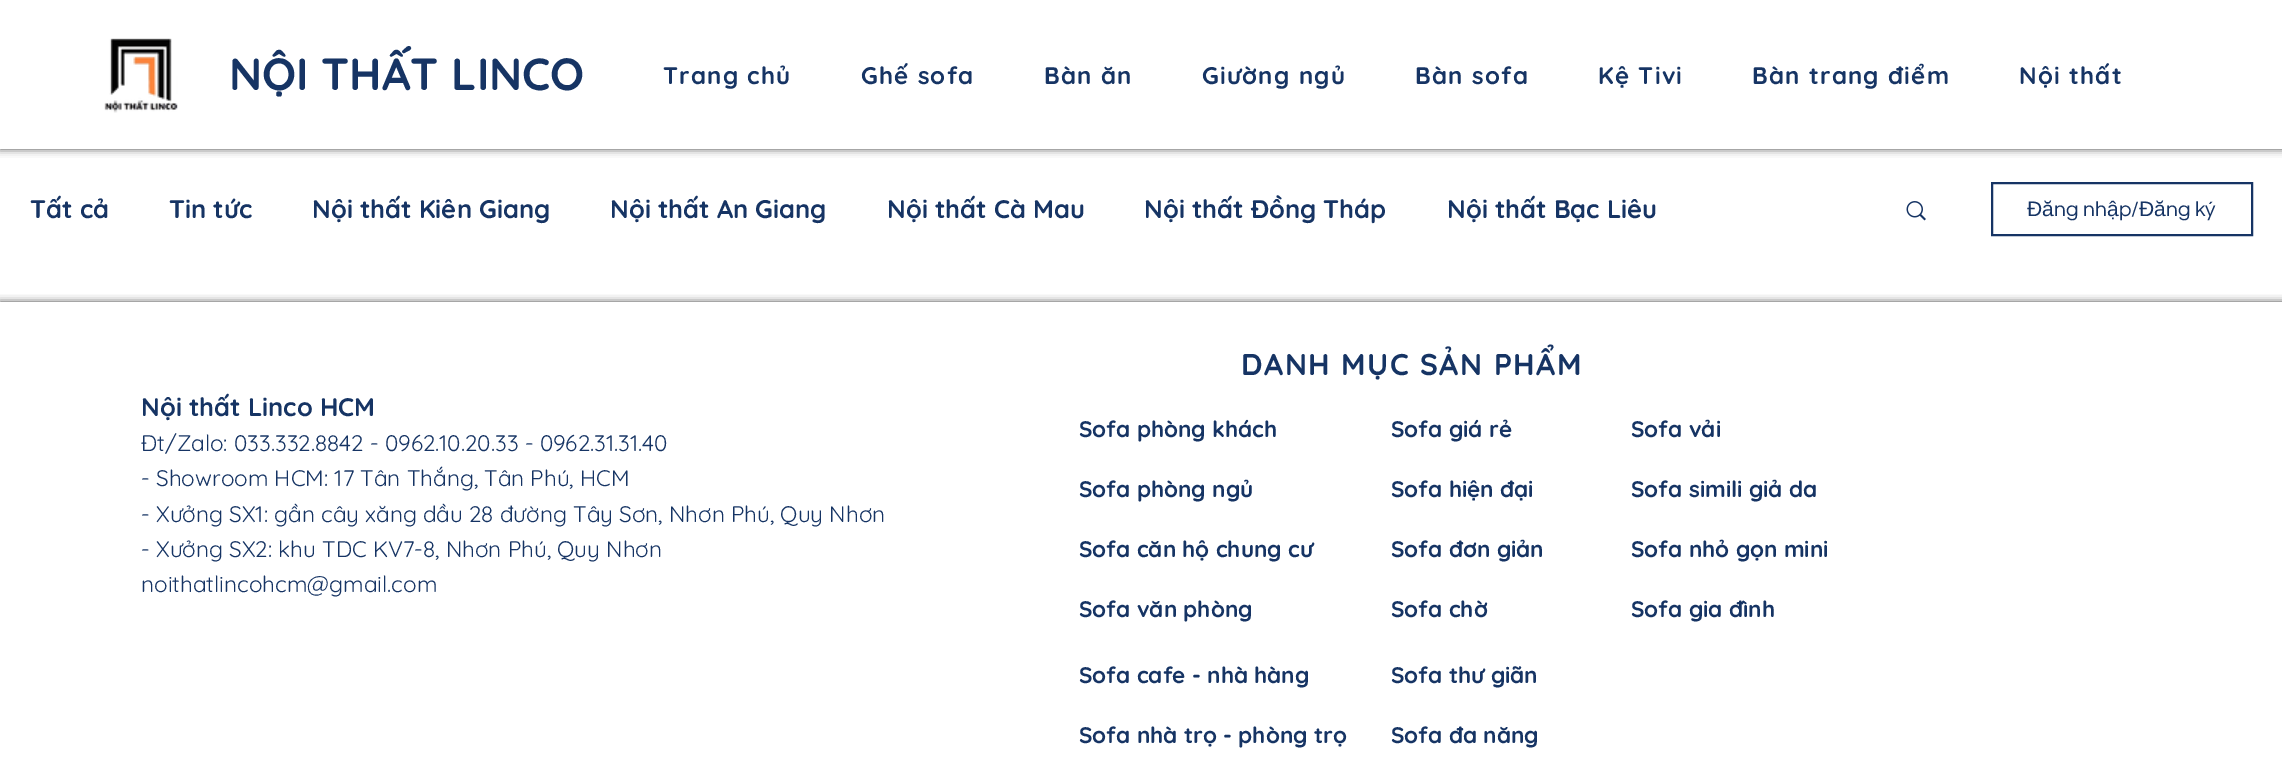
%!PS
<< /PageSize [2282 775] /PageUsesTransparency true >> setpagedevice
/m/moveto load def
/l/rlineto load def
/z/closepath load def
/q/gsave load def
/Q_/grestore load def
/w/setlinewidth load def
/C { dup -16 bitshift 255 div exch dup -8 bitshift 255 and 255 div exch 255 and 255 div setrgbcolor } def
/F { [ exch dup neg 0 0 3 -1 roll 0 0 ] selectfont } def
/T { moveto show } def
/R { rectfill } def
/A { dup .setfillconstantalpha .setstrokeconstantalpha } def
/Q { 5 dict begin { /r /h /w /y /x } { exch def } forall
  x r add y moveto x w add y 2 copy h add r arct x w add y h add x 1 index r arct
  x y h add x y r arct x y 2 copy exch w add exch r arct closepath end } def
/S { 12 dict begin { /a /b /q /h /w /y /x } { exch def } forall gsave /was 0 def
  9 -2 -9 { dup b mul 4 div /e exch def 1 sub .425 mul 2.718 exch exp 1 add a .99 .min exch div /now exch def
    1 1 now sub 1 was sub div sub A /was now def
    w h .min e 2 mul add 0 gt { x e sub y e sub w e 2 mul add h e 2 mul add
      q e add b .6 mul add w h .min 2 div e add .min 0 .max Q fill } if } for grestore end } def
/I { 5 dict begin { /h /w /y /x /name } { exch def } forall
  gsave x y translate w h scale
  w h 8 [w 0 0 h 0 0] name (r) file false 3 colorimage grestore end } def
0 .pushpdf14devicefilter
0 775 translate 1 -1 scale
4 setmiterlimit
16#FFFFFF C
0 0 2282 775 R
q
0 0 m 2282 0 l 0 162 l -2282 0 l z 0 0 m 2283 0 l 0 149 l -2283 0 l z eoclip newpath
16#000000 C
0 0 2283 149 0 4 .7 S
Q_
0.6 A
0 148 2282 1 R
1 A
(1.rgb) 104 38 74 75 I
/Quicksand-Bold 45 F
16#163464 C
(NỘI THẤT LINCO) 229 90 T
/Quicksand-Bold 24 F
663 84 m 1.25 0 (Trang chủ) ashow
861 84 m 1.25 0 (Ghế sofa) ashow
1044 84 m 1.25 0 (Bàn ăn) ashow
1202 84 m 1.25 0 (Giường ngủ) ashow
1415 84 m 1.25 0 (Bàn sofa) ashow
1598 84 m 1.25 0 (Kệ Tivi) ashow
1752 84 m 1.25 0 (Bàn trang điểm) ashow
2019 84 m 1.25 0 (Nội thất) ashow
/Quicksand-Bold 25.5 F
(Tất cả) 30 218 T
(Tin tức) 169 218 T
(Nội thất Kiên Giang) 312 218 T
(Nội thất An Giang) 610 218 T
(Nội thất Cà Mau) 887 218 T
(Nội thất Đồng Tháp) 1144 218 T
(Nội thất Bạc Liêu) 1447 218 T
(2.rgb) 1906 201 20 20 I
2 w
1992 183 260 52 rectstroke
/LiberationSans-Regular 21 F
(Đă) 2027 216 T
/Questrial-Regular 21 F
(ng nh) 2054 216 T
/LiberationSans-Regular 21 F
(ậ) 2107 216 T
/Questrial-Regular 21 F
(p/) 2119 216 T
/LiberationSans-Regular 21 F
(Đă) 2139 216 T
/Questrial-Regular 21 F
(ng ký) 2166 216 T
q
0 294 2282 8 rectclip
16#000000 C
0 302 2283 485 0 4 .7 S
Q_
/Quicksand-Bold 30 F
1241 375 m 1.5 0 (DANH MỤC SẢN PHẨM) ashow
/Quicksand-Bold 25.5 F
(Nội thất Linco HCM) 141 416 T
/Quicksand-Regular 22.5 F
(Đt/Zalo: 033.332.8842 - 0962.10.20.33 - 0962.31.31.40) 141 451 T
(- Showroom HCM: 17 Tân Thắng, Tân Phú, HCM) 141 486 T
(- Xưởng SX1: gần cây xăng dầu 28 đường Tây Sơn, Nhơn Phú, Quy Nhơn) 141 522 T
(- Xưởng SX2: khu TDC KV7-8, Nhơn Phú, Quy Nhơn) 141 557 T
(noithatlincohcm@gmail.com) 141 592 T
/Quicksand-Bold 22.5 F
(Sofa phòng khách) 1079 437 T
(Sofa giá rẻ) 1391 437 T
(Sofa vải) 1631 437 T
(Sofa phòng ngủ) 1079 497 T
(Sofa hiện đại) 1391 497 T
(Sofa simili giả da) 1631 497 T
(Sofa căn hộ chung cư) 1079 557 T
(Sofa đơn giản) 1391 557 T
(Sofa nhỏ gọn mini) 1631 557 T
(Sofa văn phòng) 1079 617 T
(Sofa chờ) 1391 617 T
(Sofa gia đình) 1631 617 T
(Sofa cafe - nhà hàng) 1079 683 T
(Sofa thư giãn) 1391 683 T
(Sofa nhà trọ - phòng trọ) 1079 743 T
(Sofa đa năng) 1391 743 T
.poppdf14devicefilter showpage
